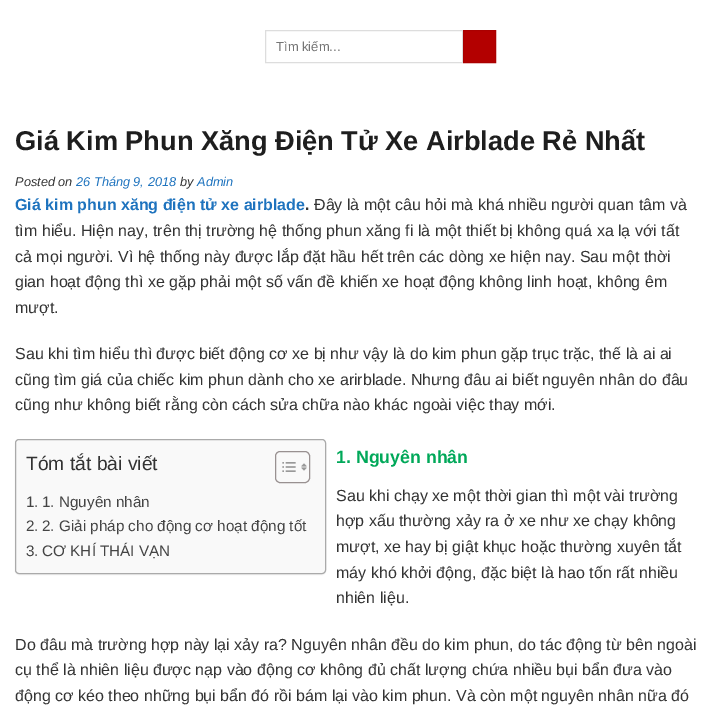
%!PS
<< /PageSize [709 709] /PageUsesTransparency true >> setpagedevice
/m/moveto load def
/l/rlineto load def
/z/closepath load def
/f/fill load def
/s/stroke load def
/q/gsave load def
/Q_/grestore load def
/C { dup -16 bitshift 255 div exch dup -8 bitshift 255 and 255 div exch 255 and 255 div setrgbcolor } def
/F { [ exch dup neg 0 0 3 -1 roll 0 0 ] selectfont } def
/T { moveto show } def
/R { rectfill } def
/A { dup .setfillconstantalpha .setstrokeconstantalpha } def
/Q { 5 dict begin { /r /h /w /y /x } { exch def } forall
  x r add y moveto x w add y 2 copy h add r arct x w add y h add x 1 index r arct
  x y h add x y r arct x y 2 copy exch w add exch r arct closepath end } def
/S { 12 dict begin { /a /b /q /h /w /y /x } { exch def } forall gsave /was 0 def
  9 -2 -9 { dup b mul 4 div /e exch def 1 sub .425 mul 2.718 exch exp 1 add a .99 .min exch div /now exch def
    1 1 now sub 1 was sub div sub A /was now def
    w h .min e 2 mul add 0 gt { x e sub y e sub w e 2 mul add h e 2 mul add
      q e add b .6 mul add w h .min 2 div e add .min 0 .max Q fill } if } for grestore end } def
/I { 5 dict begin { /h /w /y /x /name } { exch def } forall
  gsave x y translate w h scale
  w h 8 [w 0 0 h 0 0] name (r) file false 3 colorimage grestore end } def
0 .pushpdf14devicefilter
0 709 translate 1 -1 scale
4 setmiterlimit
16#FFFFFF C
0 0 709 709 R
16#DDDDDD C
265.5 30.5 197 32 rectstroke
/LiberationSans-Regular 13 F
16#757575 C
(Tìm kiếm...) 276 51 T
16#B30000 C
463.5 30.5 m 32 0 l 0 32 l -32 0 l z q f Q_
16#AA0000 C
s
/LiberationSans-Bold 27.2 F
16#1E1E1E C
(Giá Kim Phun Xăng Điện Tử Xe Airblade Rẻ Nhất) 15 150 T
/LiberationSans-Italic 12.75 F
16#333333 C
(Posted on) 15 186 T
16#1E73BE C
(26 Tháng 9, 2018) 76 186 T
16#333333 C
(by) 180 186 T
16#1E73BE C
(Admin) 197 186 T
/LiberationSans-Bold 16 F
(Giá kim phun xăng điện tử xe airblade) 15 210 T
16#333333 C
(.) 305 210 T
/LiberationSans-Regular 16 F
(Đây là một câu hỏi mà khá nhiều người quan tâm và) 314 210 T
(tìm hiểu. Hiện nay, trên thị trường hệ thống phun xăng fi là một thiết bị không quá xa lạ với tất) 15 236 T
(cả mọi người. Vì hệ thống này được lắp đặt hầu hết trên các dòng xe hiện nay. Sau một thời) 15 262 T
(gian hoạt động thì xe gặp phải một số vấn đề khiến xe hoạt động không linh hoạt, không êm) 15 287 T
(mượt.) 15 313 T
(Sau khi tìm hiểu thì được biết động cơ xe bị như vậy là do kim phun gặp trục trặc, thế là ai ai) 15 359 T
(cũng tìm giá của chiếc kim phun dành cho xe arirblade. Nhưng đâu ai biết nguyên nhân do đâu) 15 385 T
(cũng như không biết rằng còn cách sửa chữa nào khác ngoài việc thay mới.) 15 410 T
16#000000 C
15 440 311 135 4 .5 .05 S
16#F9F9F9 C
15.5 439.5 310 134 3.5 Q q f Q_
16#AAAAAA C
s
/LiberationSans-Regular 19.25 F
16#333333 C
(Tóm tắt bài viết) 26 470 T
16#999191 C
275.5 451.5 34 31 4.5 Q s
(1.rgb) 282 462 14 10 I
(2.rgb) 301 463 6 8 I
/LiberationSans-Regular 15.25 F
16#444444 C
(1.) 26 507 T
(1. Nguyên nhân) 42 507 T
(2.) 26 531 T
(2. Giải pháp cho động cơ hoạt động tốt) 42 531 T
(3.) 26 556 T
(CƠ KHÍ THÁI VẠN) 42 556 T
/LiberationSans-Bold 17.75 F
16#00A859 C
(1. Nguyên nhân) 336 463 T
/LiberationSans-Regular 16 F
16#333333 C
(Sau khi chạy xe một thời gian thì một vài trường) 336 501 T
(hợp xấu thường xảy ra ở xe như xe chạy không) 336 526 T
(mượt, xe hay bị giật khục hoặc thường xuyên tắt) 336 552 T
(máy khó khởi động, đặc biệt là hao tốn rất nhiều) 336 578 T
(nhiên liệu.) 336 603 T
(Do đâu mà trường hợp này lại xảy ra? Nguyên nhân đều do kim phun, do tác động từ bên ngoài) 15 650 T
(cụ thể là nhiên liệu được nạp vào động cơ không đủ chất lượng chứa nhiều bụi bẩn đưa vào) 15 675 T
(động cơ kéo theo những bụi bẩn đó rồi bám lại vào kim phun. Và còn một nguyên nhân nữa đó) 15 701 T
.poppdf14devicefilter showpage
